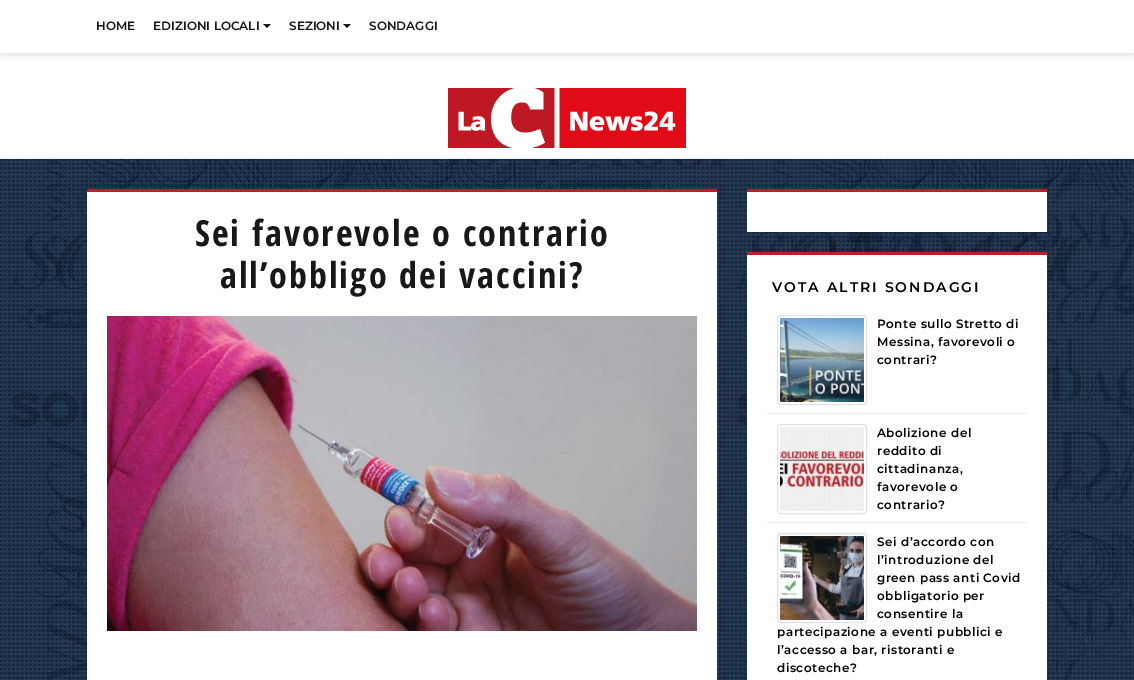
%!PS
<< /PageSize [1134 680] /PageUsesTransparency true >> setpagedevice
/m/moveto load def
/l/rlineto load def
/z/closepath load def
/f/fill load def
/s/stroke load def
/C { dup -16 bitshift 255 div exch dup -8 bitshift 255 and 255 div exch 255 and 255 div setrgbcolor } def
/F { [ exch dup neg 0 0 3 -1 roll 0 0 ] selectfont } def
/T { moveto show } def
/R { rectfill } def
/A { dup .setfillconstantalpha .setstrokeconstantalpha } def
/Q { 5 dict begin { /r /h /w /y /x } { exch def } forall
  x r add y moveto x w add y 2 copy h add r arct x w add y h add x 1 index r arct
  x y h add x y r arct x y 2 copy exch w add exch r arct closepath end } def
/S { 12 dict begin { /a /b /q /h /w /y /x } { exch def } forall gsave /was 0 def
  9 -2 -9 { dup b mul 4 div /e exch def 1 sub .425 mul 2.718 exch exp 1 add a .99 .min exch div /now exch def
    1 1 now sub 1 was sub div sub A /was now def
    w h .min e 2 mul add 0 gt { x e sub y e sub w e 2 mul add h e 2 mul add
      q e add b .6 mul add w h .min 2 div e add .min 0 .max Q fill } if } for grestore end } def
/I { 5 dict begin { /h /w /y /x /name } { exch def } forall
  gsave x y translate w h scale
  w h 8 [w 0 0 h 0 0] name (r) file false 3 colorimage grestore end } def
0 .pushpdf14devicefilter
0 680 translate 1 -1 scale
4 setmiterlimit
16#FFFFFF C
0 0 1134 680 R
(1.rgb) 0 159 1134 521 I
16#000000 C
0 1 1134 53 0 3.5 .15 S
16#FFFFFF C
0 0 1134 53 R
/Montserrat-SemiBold 12 F
16#181818 C
(HOME) 96 30 T
(EDIZIONI LOCALI) 153 30 T
263 24 m 8 0 l -4 4 l z f
(SEZIONI) 289 30 T
343 24 m 8 0 l -4 4 l z f
(SONDAGGI) 369 30 T
16#EEEEEE C
0 158 1134 1 R
(2.rgb) 448 88 238 60 I
16#FFFFFF C
87 192 630 488 R
16#BF1F24 C
87 189 630 3 R
/OpenSansCondensed-Bold 36 F
16#181818 C
195 246 m 2 0 (Sei favorevole o contrario) ashow
220 288 m 2 0 (all’obbligo dei vaccini?) ashow
(3.rgb) 107 316 590 315 I
16#FFFFFF C
747 192 300 40 R
16#BF1F24 C
747 189 300 3 R
16#FFFFFF C
747 255 300 425 R
16#BF1F24 C
747 252 300 3 R
/Montserrat-SemiBold 14 F
16#000000 C
772 292 m 2 0 (VOTA ALTRI SONDAGGI) ashow
16#DEE2E6 C
777.5 315.5 89 89 3.5 Q s
(4.rgb) 780 318 84 84 I
/Montserrat-SemiBold 12 F
16#000000 C
877 328 m .5 0 (Ponte sullo Stretto di) ashow
877 346 m .5 0 (Messina, favorevoli o) ashow
877 364 m .5 0 (contrari?) ashow
16#EAEAEA C
767 413 260 1 R
16#DEE2E6 C
777.5 424.5 89 89 3.5 Q s
(5.rgb) 780 427 84 84 I
16#000000 C
877 437 m .5 0 (Abolizione del) ashow
877 455 m .5 0 (reddito di) ashow
877 473 m .5 0 (cittadinanza,) ashow
877 491 m .5 0 (favorevole o) ashow
877 509 m .5 0 (contrario?) ashow
16#EAEAEA C
767 522 260 1 R
16#DEE2E6 C
777.5 533.5 89 89 3.5 Q s
(6.rgb) 780 536 84 84 I
16#000000 C
877 546 m .5 0 (Sei d’accordo con) ashow
877 564 m .5 0 (l’introduzione del) ashow
877 582 m .5 0 (green pass anti Covid) ashow
877 600 m .5 0 (obbligatorio per) ashow
877 618 m .5 0 (consentire la) ashow
777 636 m .5 0 (partecipazione a eventi pubblici e) ashow
777 654 m .5 0 (l’accesso a bar, ristoranti e) ashow
777 672 m .5 0 (discoteche?) ashow
.poppdf14devicefilter showpage
